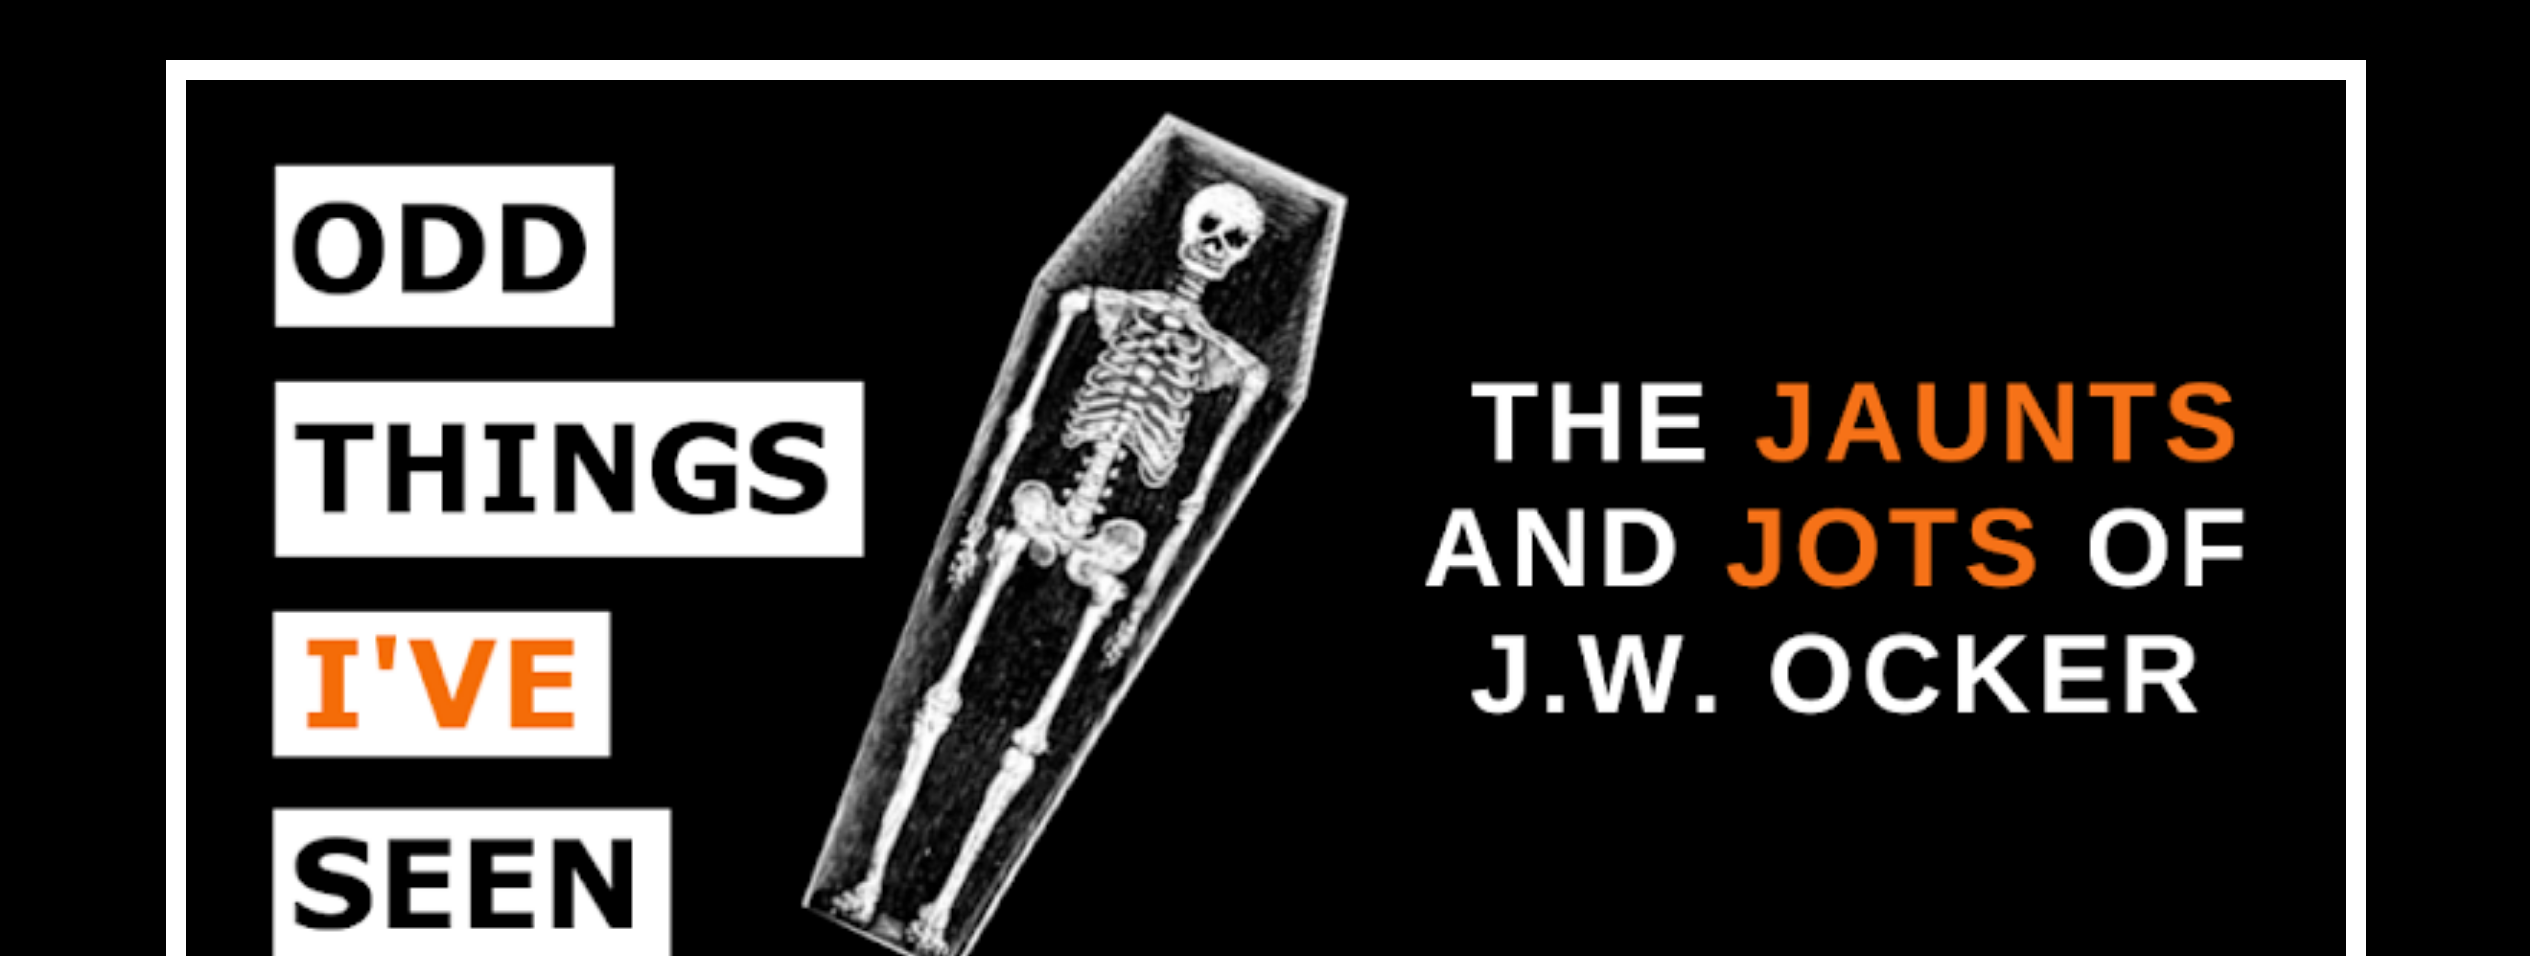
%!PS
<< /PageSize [2530 956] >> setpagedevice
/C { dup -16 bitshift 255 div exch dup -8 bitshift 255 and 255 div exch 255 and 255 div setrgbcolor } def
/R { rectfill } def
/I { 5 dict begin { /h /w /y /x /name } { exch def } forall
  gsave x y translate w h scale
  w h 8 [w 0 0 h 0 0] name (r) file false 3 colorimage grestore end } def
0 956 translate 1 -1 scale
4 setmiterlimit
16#000000 C
0 0 2530 956 R
16#FFFFFF C
166 60 2200 896 R
(1.rgb) 186 80 2160 876 I
showpage
